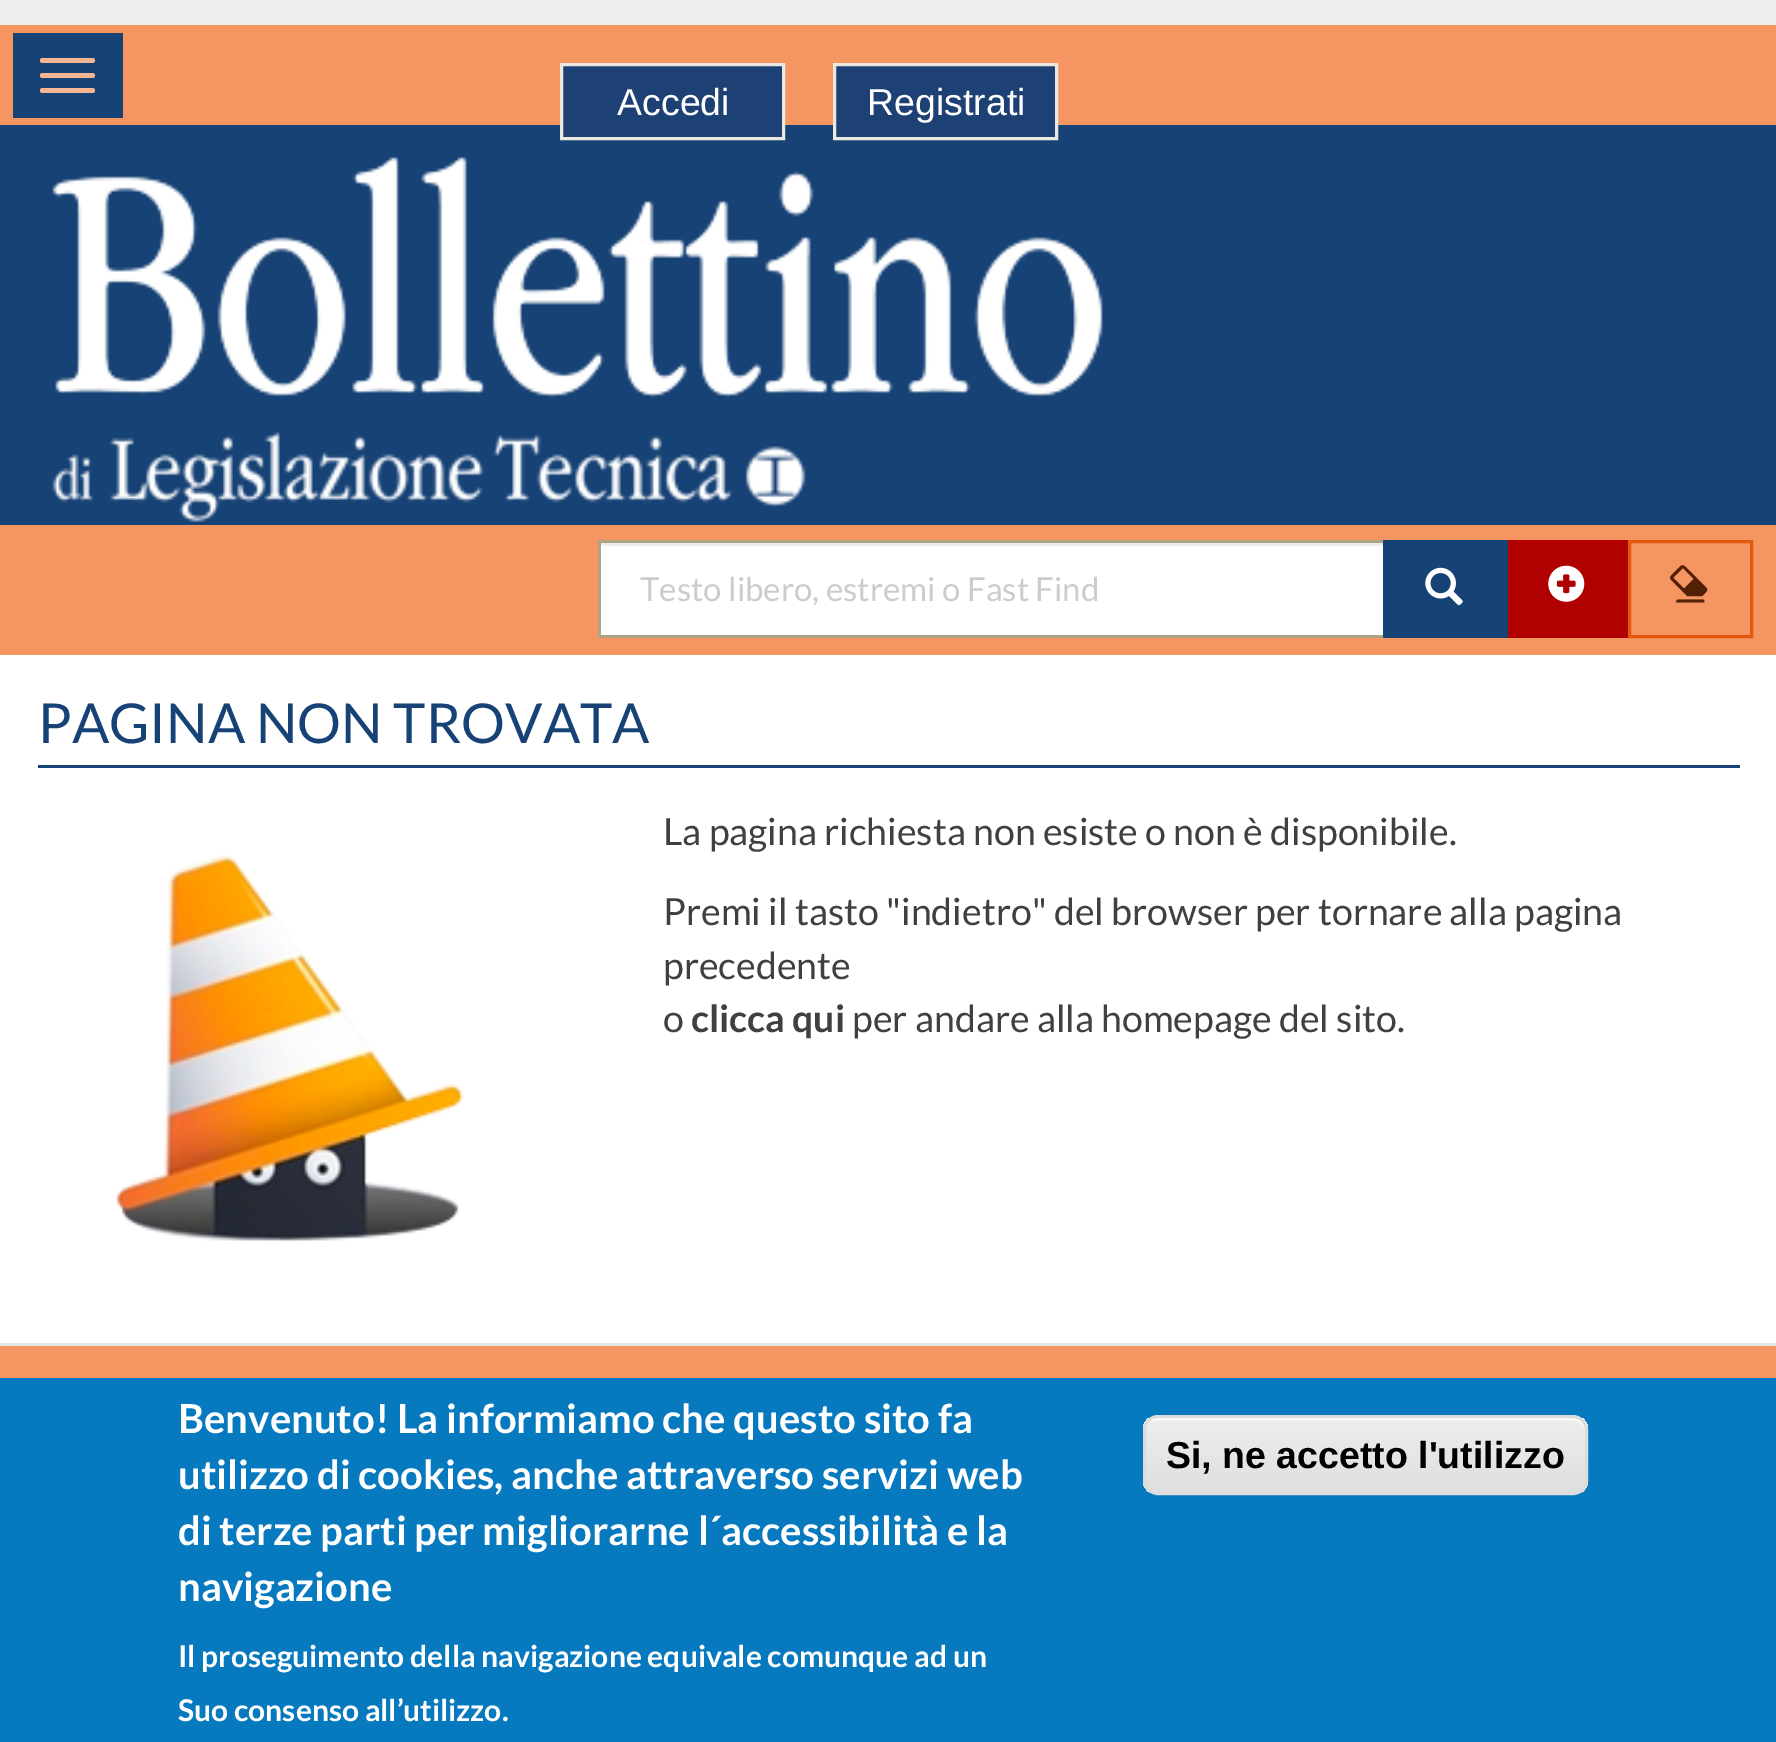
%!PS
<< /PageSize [1776 1742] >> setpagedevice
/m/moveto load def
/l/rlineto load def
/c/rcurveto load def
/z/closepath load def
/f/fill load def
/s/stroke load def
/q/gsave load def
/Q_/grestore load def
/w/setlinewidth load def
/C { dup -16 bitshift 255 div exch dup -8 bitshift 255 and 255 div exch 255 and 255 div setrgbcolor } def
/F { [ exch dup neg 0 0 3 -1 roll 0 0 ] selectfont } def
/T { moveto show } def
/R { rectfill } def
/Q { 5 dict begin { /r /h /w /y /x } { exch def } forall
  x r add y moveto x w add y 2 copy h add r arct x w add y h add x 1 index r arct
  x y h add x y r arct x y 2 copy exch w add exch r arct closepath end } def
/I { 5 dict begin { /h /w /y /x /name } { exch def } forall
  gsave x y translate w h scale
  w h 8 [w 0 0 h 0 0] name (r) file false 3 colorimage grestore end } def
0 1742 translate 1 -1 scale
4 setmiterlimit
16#EEEEEE C
0 0 1776 1742 R
16#FFFFFF C
0 655 1776 688 R
16#F59561 C
0 25 1776 100 R
16#174275 C
13 33 110 85 R
16#F8B591 C
40 58 55 5 2.5 Q f
40 73 55 5 2.5 Q f
40 88 55 5 2.5 Q f
16#174275 C
0 125 1776 400 R
16#1D4174 C
561.5 64.5 m 222 0 l 0 74 l -222 0 l z q f Q_
16#EAE8E0 C
3 w
s
/LiberationSans-Regular 37.5 F
16#FFFFFF C
(Accedi) 617 115 T
16#1D4174 C
834.5 64.5 m 222 0 l 0 74 l -222 0 l z q f Q_
16#EAE8E0 C
s
16#FFFFFF C
(Registrati) 867 115 T
(1.rgb) 52 157 1051 365 I
16#F59561 C
0 525 1776 130 R
16#FFFFFF C
601 546 782 89 R
16#ECECEC C
600 543 783 3 R
16#ACA485 C
598 540 785 3 R
598 635 785 3 R
598 540 3 98 R
/Lato-Regular 33 F
16#CCCCCC C
(Testo libero, estremi o Fast Find) 640 601 T
16#174275 C
1383 540 125 98 R
(2.rgb) 1425 567 38 39 I
16#B10000 C
1508 540 120 98 R
(3.rgb) 1548 565 37 37 I
16#E2590E C
1629.5 541.5 122 95 rectstroke
(4.rgb) 1670 565 38 38 I
16#174275 C
38 765 1702 3 R
/Lato-Regular 55 F
(PAGINA NON TROVATA) 38 743 T
(5.rgb) 115 855 349 386 I
/Lato-Regular 37.5 F
16#404040 C
(La pagina richiesta non esiste o non è disponibile.) 663 845 T
(Premi il tasto "indietro" del browser per tornare alla pagina) 663 925 T
(precedente) 663 979 T
(o) 663 1032 T
/Lato-Bold 37.5 F
(clicca qui) 691 1032 T
/Lato-Regular 37.5 F
(per andare alla homepage del sito.) 852 1032 T
16#F59561 C
0 1346 1776 32 R
16#E5E5E5 C
0 1343 1776 3 R
16#0779BF C
0 1378 1776 364 R
/Lato-Bold 40 F
16#FFFFFF C
(Benvenuto! La informiamo che questo sito fa) 178 1433 T
(utilizzo di cookies, anche attraverso servizi web) 178 1489 T
(di terze parti per migliorarne l´accessibilità e la) 178 1545 T
(navigazione) 178 1601 T
/Lato-Bold 30 F
(Il proseguimento della navigazione equivale comunque ad un) 178 1667 T
(Suo consenso all’utilizzo.) 178 1721 T
q
1143 1415 445 80 15 Q clip newpath
q 1143 1418 m 445 0 l 0 75 l -445 0 l z clip newpath
<< /ShadingType 2 /ColorSpace /DeviceRGB /Coords [1365 1418 1365 1493] /Extend [true true] /Function << /FunctionType 3 /Domain [0 1] /Functions [<< /FunctionType 2 /Domain [0 1] /C0 [.929 .929 .929] /C1 [.929 .929 .929] /N 1 >> << /FunctionType 2 /Domain [0 1] /C0 [.929 .929 .929] /C1 [.875 .875 .875] /N 1 >>] /Bounds [.05] /Encode [0 1 0 1] >> >> shfill Q_
Q_
1158 1420 m 414 0 l 7 0 13 6 13 12 c 0 -1 l 0 -7 -6 -13 -13 -13 c -414 0 l -7 0 -13 6 -13 13 c 0 1 l 0 -6 6 -12 13 -12 c z f
16#DCDCDC C
1144.5 1416.5 442 77 13.5 Q s
/LiberationSans-Bold 37.5 F
16#000000 C
(Si, ne accetto l'utilizzo) 1166 1468 T
showpage
